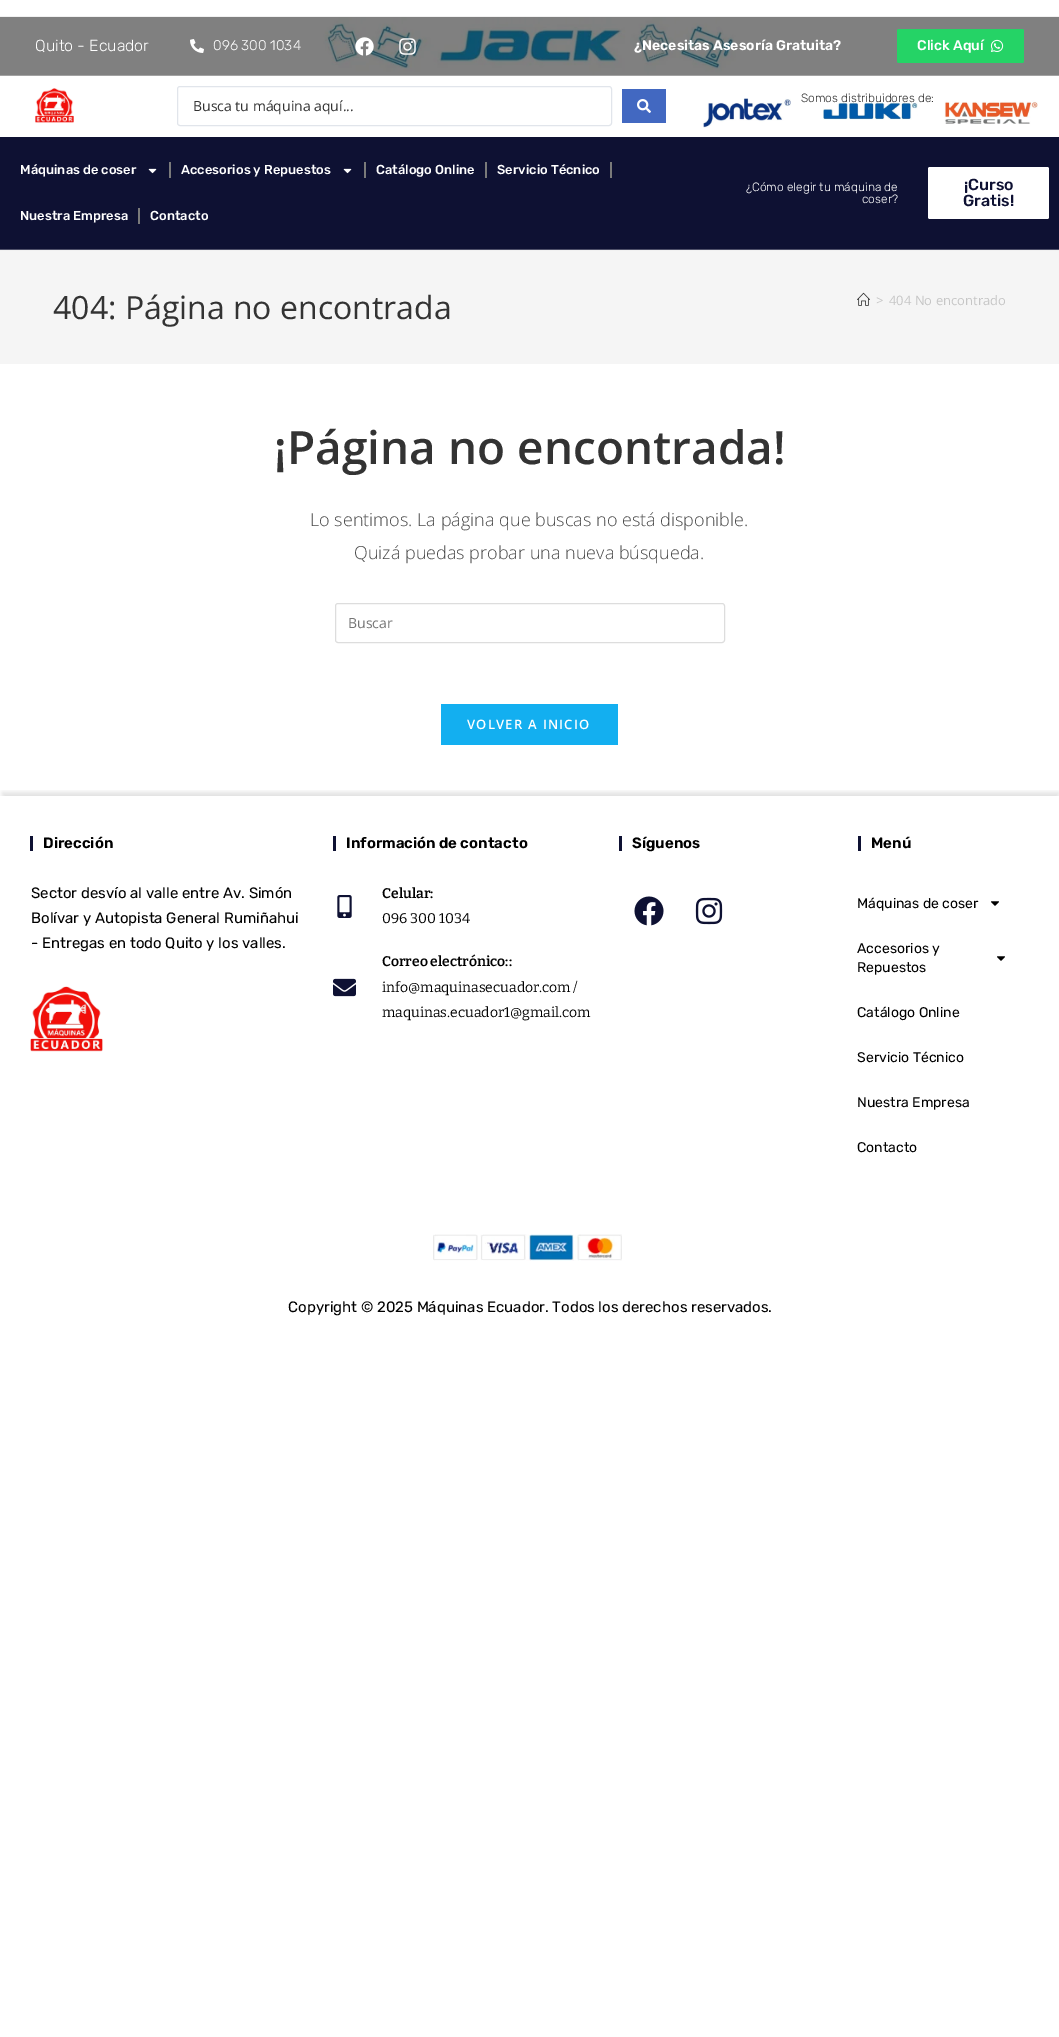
%!PS
<< /PageSize [1059 2037] /PageUsesTransparency true >> setpagedevice
/m/moveto load def
/f/fill load def
/s/stroke load def
/q/gsave load def
/Q_/grestore load def
/C { dup -16 bitshift 255 div exch dup -8 bitshift 255 and 255 div exch 255 and 255 div setrgbcolor } def
/F { [ exch dup neg 0 0 3 -1 roll 0 0 ] selectfont } def
/T { moveto show } def
/R { rectfill } def
/A { dup .setfillconstantalpha .setstrokeconstantalpha } def
/Q { 5 dict begin { /r /h /w /y /x } { exch def } forall
  x r add y moveto x w add y 2 copy h add r arct x w add y h add x 1 index r arct
  x y h add x y r arct x y 2 copy exch w add exch r arct closepath end } def
/S { 12 dict begin { /a /b /q /h /w /y /x } { exch def } forall gsave /was 0 def
  9 -2 -9 { dup b mul 4 div /e exch def 1 sub .425 mul 2.718 exch exp 1 add a .99 .min exch div /now exch def
    1 1 now sub 1 was sub div sub A /was now def
    w h .min e 2 mul add 0 gt { x e sub y e sub w e 2 mul add h e 2 mul add
      q e add b .6 mul add w h .min 2 div e add .min 0 .max Q fill } if } for grestore end } def
/I { 5 dict begin { /h /w /y /x /name } { exch def } forall
  gsave x y translate w h scale
  w h 8 [w 0 0 h 0 0] name (r) file false 3 colorimage grestore end } def
0 .pushpdf14devicefilter
0 2037 translate 1 -1 scale
4 setmiterlimit
16#FFFFFF C
0 0 1059 2037 R
16#F1F1F1 C
0 16 1059 1 R
0 250 1059 1 R
(1.rgb) 0 17 1059 58 I
/Rubik-Light 16 F
16#FFFFFF C
(Quito - Ecuador) 35 51 T
(2.rgb) 190 39 14 14 I
/Rubik-Light 14 F
(096 300 1034) 213 50 T
(3.rgb) 355 37 19 19 I
(4.rgb) 399 38 17 17 I
/Rubik-SemiBold 14 F
(¿Necesitas Asesoría Gratuita?) 634 50 T
16#25D366 C
897 29 127 34 2 Q f
/Rubik-Medium 14 F
16#FFFFFF C
(Click Aquí) 917 50 T
(5.rgb) 990 39 14 13 I
16#A2A2A2 C
0 75 1059 1 R
(6.rgb) 35 88 39 35 I
(8.rgb) 823 102 95 18 I
/Rubik-Light 12 F
16#333333 C
(Somos distribuidores de:) 801 102 T
(7.rgb) 703 98 88 30 I
(9.rgb) 944 100 94 24 I
16#E1E5EB C
177.5 86.5 434 39 2.5 Q s
/OpenSans-Regular 14 F
16#333333 C
(Busca tu máquina aquí...) 193 111 T
16#4268C1 C
622 89 44 34 R
(10.rgb) 637 99 14 14 I
16#0E1133 C
0 137 1059 112 R
16#4F516A C
0 249 1059 1 R
/Rubik-Medium 13 F
16#FFFFFF C
(Máquinas de coser) 20 174 T
(11.rgb) 148 168 9 6 I
16#7A7A7A C
169 162 2 16 R
16#FFFFFF C
(Accesorios y Repuestos) 181 174 T
(11.rgb) 343 168 9 6 I
16#7A7A7A C
364 162 2 16 R
16#FFFFFF C
(Catálogo Online) 376 174 T
16#7A7A7A C
485 162 2 16 R
16#FFFFFF C
(Servicio Técnico) 497 174 T
16#7A7A7A C
610 162 2 16 R
16#FFFFFF C
(Nuestra Empresa) 20 220 T
16#7A7A7A C
138 208 2 16 R
16#FFFFFF C
(Contacto) 150 220 T
/Rubik-Light 12 F
(¿Cómo elegir tu máquina de) 746 191 T
(coser?) 862 203 T
928 167 121 52 2 Q f
/Rubik-Medium 16 F
16#0E1133 C
(¡Curso) 964 190 T
(Gratis!) 963 206 T
16#F5F5F5 C
0 251 1059 113 R
/OpenSans-Regular 32 F
16#333333 C
(404: Página no encontrada) 53 319 T
(12.rgb) 857 292 13 14 I
/OpenSans-Regular 13 F
16#C6C6C6 C
(>) 876 305 T
(404 No encontrado) 889 305 T
/OpenSans-SemiBold 46 F
16#333333 C
(¡Página no encontrada!) 274 464 T
/OpenSans-Light 18 F
16#4A4A4A C
(Lo sentimos. La página que buscas no está disponible.) 310 526 T
(Quizá puedas probar una nueva búsqueda.) 354 559 T
16#DDDDDD C
335.5 603.5 389 39 2.5 Q s
/OpenSans-Regular 14 F
16#757575 C
(Buscar) 348 628 T
16#13AFF0 C
441 704 177 41 R
/OpenSans-SemiBold 13 F
16#FFFFFF C
467 729 m 1.25 0 (VOLVER A INICIO) ashow
q
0 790 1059 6 rectclip
16#000000 C
2 792 1057 382 0 2.5 .11 S
Q_
16#0E1133 C
30 836 3 15 R
/Rubik-SemiBold 15 F
16#000000 C
(Dirección) 43 848 T
/Rubik-Regular 15 F
(Sector desvío al valle entre Av. Simón) 31 898 T
(Bolívar y Autopista General Rumiñahui) 31 923 T
(- Entregas en todo Quito y los valles.) 31 948 T
(13.rgb) 30 986 73 66 I
16#0E1133 C
333 836 3 15 R
/Rubik-SemiBold 15 F
16#000000 C
(Información de contacto) 346 848 T
(14.rgb) 337 895 15 23 I
/Bitter-SemiBold 14 F
(Celular:) 382 898 T
/Bitter-Regular 14 F
(096 300 1034) 382 923 T
(15.rgb) 333 978 23 19 I
/Bitter-SemiBold 14 F
(Correo electrónico::) 382 966 T
/Bitter-Regular 14 F
(info@maquinasecuador.com /) 382 992 T
(maquinas.ecuador1@gmail.com) 382 1017 T
16#0E1133 C
619 836 3 15 R
/Rubik-SemiBold 15 F
16#000000 C
(Síguenos) 632 848 T
(16.rgb) 634 896 30 30 I
(17.rgb) 695 897 28 28 I
16#0E1133 C
858 836 3 15 R
16#000000 C
(Menú) 871 848 T
/Rubik-Regular 14 F
(Máquinas de coser) 857 908 T
(18.rgb) 991 901 8 5 I
(Accesorios y) 857 953 T
(18.rgb) 997 956 8 5 I
(Repuestos) 857 972 T
(Catálogo Online) 857 1017 T
(Servicio Técnico) 857 1062 T
(Nuestra Empresa) 857 1107 T
(Contacto) 857 1152 T
(19.rgb) 433 1234 189 27 I
/Rubik-Regular 15 F
(Copyright © 2025 Máquinas Ecuador. Todos los derechos reservados.) 288 1312 T
.poppdf14devicefilter showpage
